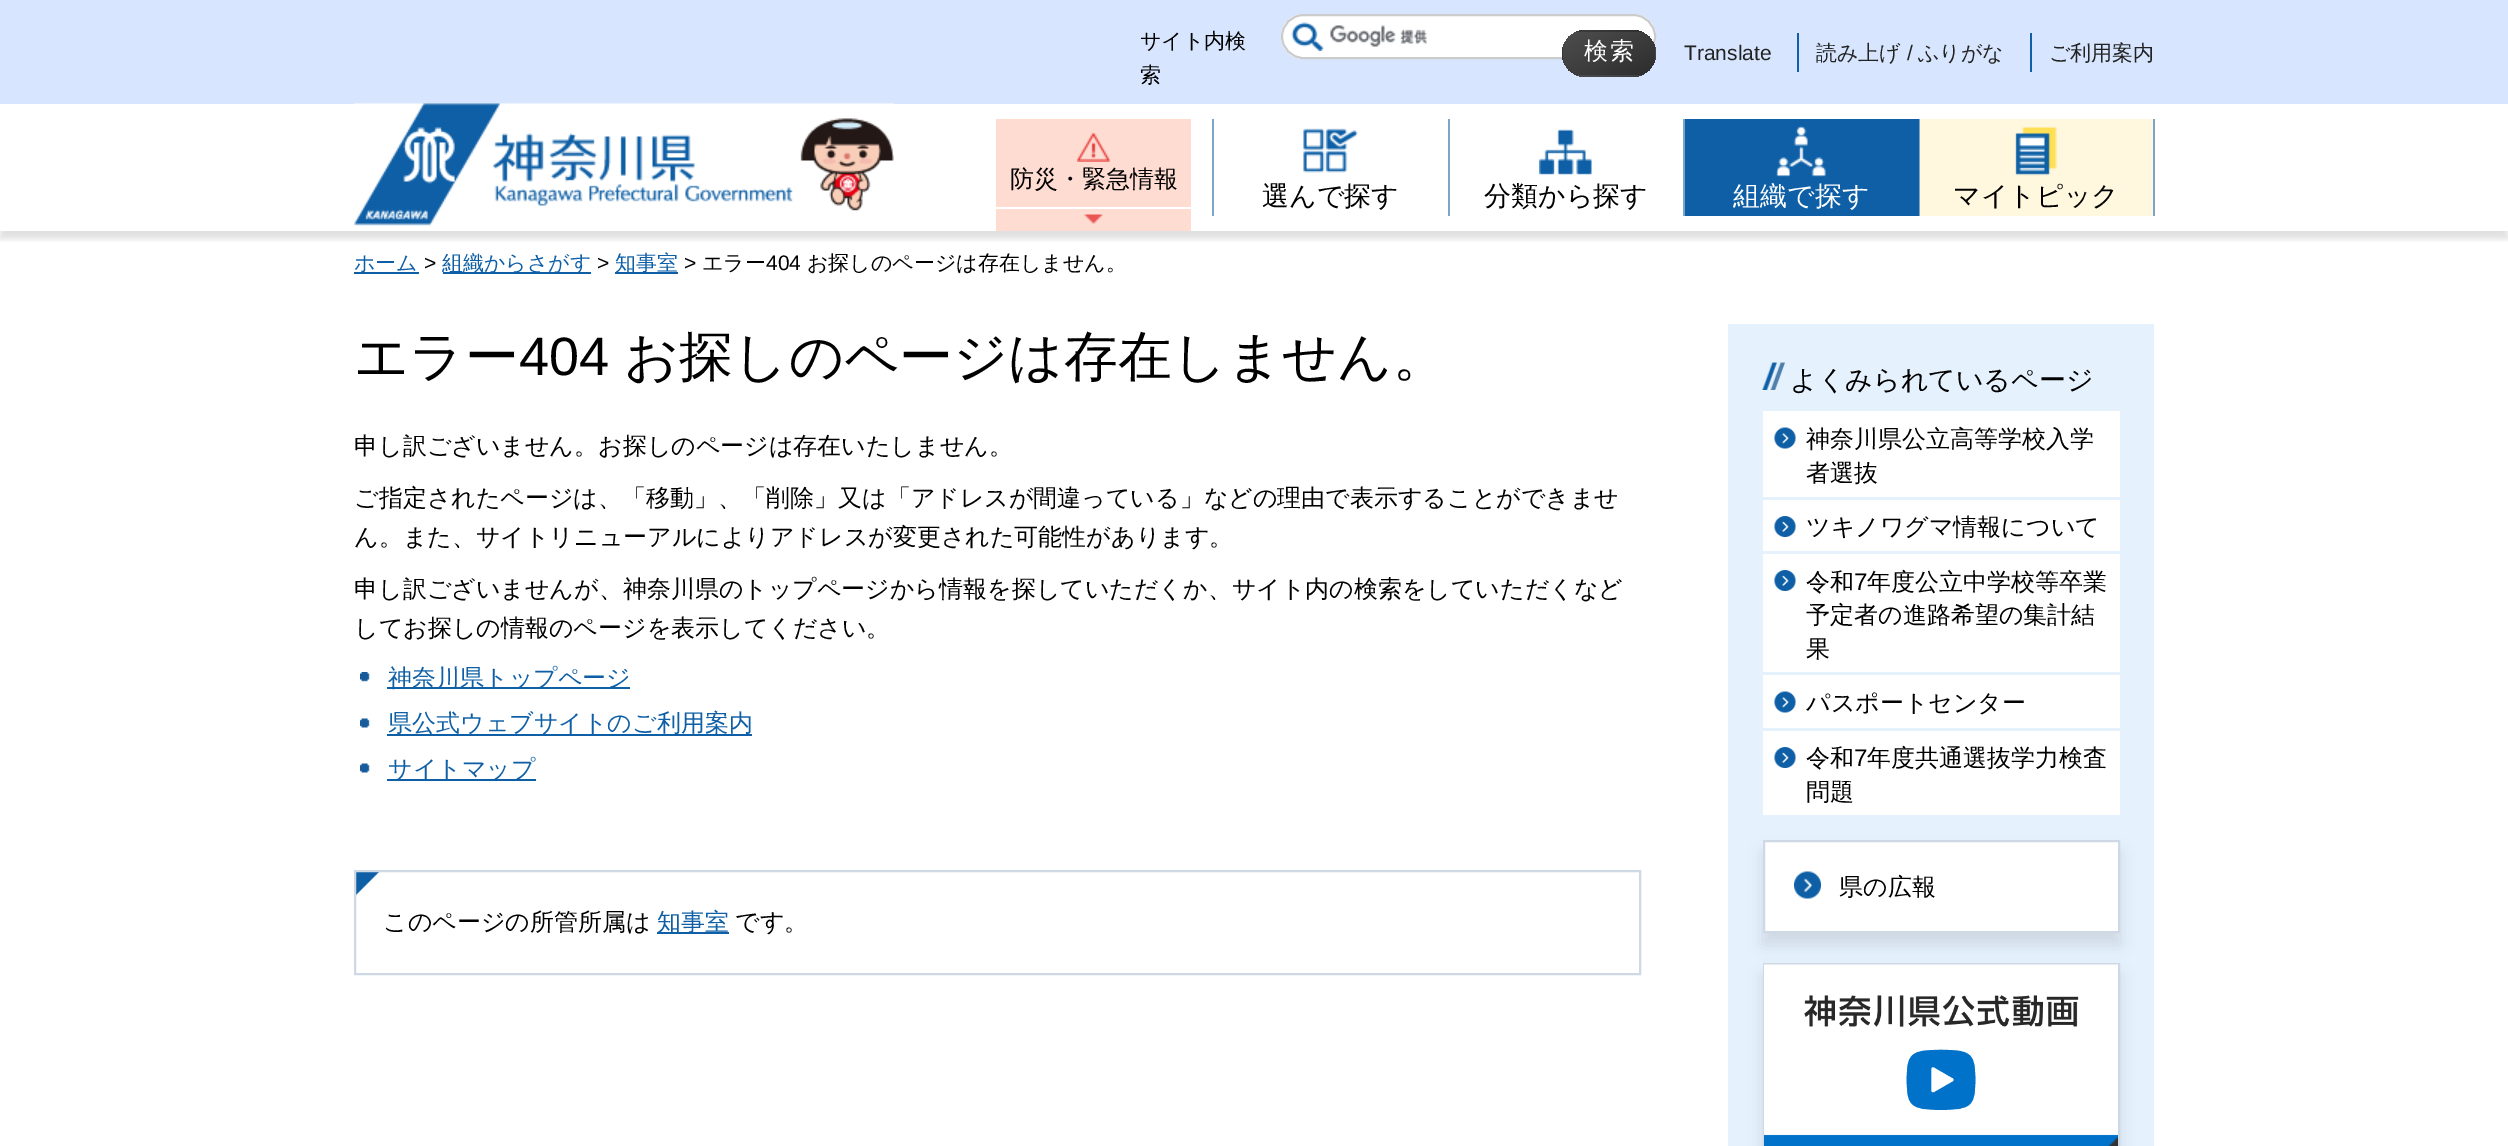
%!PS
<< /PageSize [2508 1146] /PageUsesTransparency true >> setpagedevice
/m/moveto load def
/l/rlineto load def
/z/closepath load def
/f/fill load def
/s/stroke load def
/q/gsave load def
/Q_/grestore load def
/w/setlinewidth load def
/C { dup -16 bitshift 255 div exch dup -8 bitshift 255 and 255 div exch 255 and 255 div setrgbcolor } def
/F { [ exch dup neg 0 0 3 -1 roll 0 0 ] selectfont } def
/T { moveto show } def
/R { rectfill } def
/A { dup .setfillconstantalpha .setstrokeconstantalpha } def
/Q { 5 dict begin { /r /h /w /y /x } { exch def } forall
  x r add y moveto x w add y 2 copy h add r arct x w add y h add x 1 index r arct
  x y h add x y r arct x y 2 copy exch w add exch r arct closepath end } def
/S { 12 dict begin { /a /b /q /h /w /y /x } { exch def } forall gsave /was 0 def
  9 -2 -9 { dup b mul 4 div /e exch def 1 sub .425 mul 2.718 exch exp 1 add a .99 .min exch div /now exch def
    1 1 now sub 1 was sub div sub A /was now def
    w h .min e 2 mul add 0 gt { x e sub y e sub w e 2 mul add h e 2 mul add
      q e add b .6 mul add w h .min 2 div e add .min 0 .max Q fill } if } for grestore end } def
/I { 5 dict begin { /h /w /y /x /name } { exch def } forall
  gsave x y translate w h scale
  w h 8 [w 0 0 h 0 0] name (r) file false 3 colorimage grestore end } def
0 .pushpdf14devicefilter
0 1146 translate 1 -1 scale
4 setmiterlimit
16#FFFFFF C
0 0 2508 1146 R
16#D7E6FE C
0 0 2508 104 R
/WenQuanYiZenHei-Medium 21 F
16#000000 C
(サイト内検) 1140 48 T
(索) 1140 82 T
16#FFFFFF C
1281 14 375 45 22.5 Q f
(1.rgb) 1291 22 136 29 I
16#CCCCCC C
2 w
1282 15 373 43 21.5 Q s
q
1562 30 94 47 23.5 Q clip newpath
q 1576 30 m 66 0 l 0 2 l -66 0 l z clip newpath
<< /ShadingType 2 /ColorSpace /DeviceRGB /Coords [1628 45 1590 -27] /Extend [true true] /Function << /FunctionType 2 /Domain [0 1] /C0 [.176 .176 .176] /C1 [.306 .306 .306] /N 1 >> >> shfill Q_
q 1562 47 m 1 0 l 0 13 l -1 0 l z clip newpath
<< /ShadingType 2 /ColorSpace /DeviceRGB /Coords [1536 88 1498 17] /Extend [true true] /Function << /FunctionType 2 /Domain [0 1] /C0 [.176 .176 .176] /C1 [.306 .306 .306] /N 1 >> >> shfill Q_
q 1563 32 m 92 0 l 0 43 l -92 0 l z clip newpath
<< /ShadingType 2 /ColorSpace /DeviceRGB /Coords [1628 88 1590 17] /Extend [true true] /Function << /FunctionType 2 /Domain [0 1] /C0 [.176 .176 .176] /C1 [.306 .306 .306] /N 1 >> >> shfill Q_
q 1655 47 m 1 0 l 0 13 l -1 0 l z clip newpath
<< /ShadingType 2 /ColorSpace /DeviceRGB /Coords [1719 88 1681 17] /Extend [true true] /Function << /FunctionType 2 /Domain [0 1] /C0 [.176 .176 .176] /C1 [.306 .306 .306] /N 1 >> >> shfill Q_
q 1576 75 m 66 0 l 0 2 l -66 0 l z clip newpath
<< /ShadingType 2 /ColorSpace /DeviceRGB /Coords [1628 132 1590 60] /Extend [true true] /Function << /FunctionType 2 /Domain [0 1] /C0 [.176 .176 .176] /C1 [.306 .306 .306] /N 1 >> >> shfill Q_
Q_
/WenQuanYiZenHei-Medium 24 F
16#FFFFFF C
1584 59 m 2 0 (検索) ashow
16#0E5FA6 C
1797 33 2 39 R
/LiberationSans-Regular 21 F
16#222222 C
(Translate) 1684 60 T
16#0E5FA6 C
2030 33 2 39 R
/WenQuanYiZenHei-Medium 21 F
16#222222 C
(読み上げ) 1816 60 T
/LiberationSans-Regular 21 F
(/) 1907 60 T
/WenQuanYiZenHei-Medium 21 F
(ふりがな) 1918 60 T
(ご利用案内) 2049 60 T
q
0 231 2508 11 rectclip
16#323232 C
0 111 2508 128 0 3 .15 S
Q_
(2.rgb) 354 103 540 123 I
16#FFDCD1 C
996 119 195 112 R
(3.rgb) 1077 132 33 30 I
/WenQuanYiZenHei-Medium 24 F
16#000000 C
(防災・緊急情報) 1010 187 T
(4.rgb) 1084 214 19 10 I
16#FFFFFF C
992 207 204 2 R
16#7CA5C9 C
1212 119 2 97 R
(5.rgb) 1303 128 55 45 I
/WenQuanYiZenHei-Medium 27 F
16#000000 C
(選んで探す) 1262 205 T
16#7CA5C9 C
1448 119 2 97 R
(6.rgb) 1539 129 53 46 I
16#000000 C
(分類から探す) 1484 205 T
16#7CA5C9 C
1683 119 2 97 R
16#0E5FA6 C
1685 119 234 97 R
(7.rgb) 1776 126 50 51 I
16#FFFFFF C
(組織で探す) 1733 205 T
16#7CA5C9 C
2153 119 2 97 R
1919 119 1 97 R
16#FFF7DE C
1920 119 233 97 R
(8.rgb) 2015 127 42 49 I
16#000000 C
(マイトピック) 1953 205 T
16#0E5FA6 C
354 272 65 2 R
/WenQuanYiZenHei-Medium 21 F
(ホーム) 354 270 T
/LiberationSans-Regular 21 F
16#000000 C
(>) 424 270 T
16#0E5FA6 C
443 272 148 2 R
/WenQuanYiZenHei-Medium 21 F
(組織からさがす) 442 270 T
/LiberationSans-Regular 21 F
16#000000 C
(>) 597 270 T
16#0E5FA6 C
615 272 63 2 R
/WenQuanYiZenHei-Medium 21 F
(知事室) 615 270 T
/LiberationSans-Regular 21 F
16#000000 C
(>) 684 270 T
/WenQuanYiZenHei-Medium 21 F
(エラー) 702 270 T
/LiberationSans-Regular 21 F
(404) 766 270 T
/WenQuanYiZenHei-Medium 21 F
(お探しのページは存在しません。) 807 270 T
/WenQuanYiZenHei-Medium 54 F
(エラー) 354 375 T
/LiberationSans-Regular 54 F
(404) 519 375 T
/WenQuanYiZenHei-Medium 54 F
(お探しのページは存在しません。) 624 375 T
/WenQuanYiZenHei-Medium 24 F
(申し訳ございません。お探しのページは存在いたしません。) 354 454 T
(ご指定されたページは、「移動」、「削除」又は「アドレスが間違っている」などの理由で表示することができませ) 354 506 T
(ん。また、サイトリニューアルによりアドレスが変更された可能性があります。) 354 545 T
(申し訳ございませんが、神奈川県のトップページから情報を探していただくか、サイト内の検索をしていただくなど) 354 597 T
(してお探しの情報のページを表示してください。) 354 636 T
(9.rgb) 360 672 10 10 I
16#0E5FA6 C
387 687 243 2 R
(神奈川県トップページ) 388 686 T
(10.rgb) 360 718 10 10 I
387 734 365 2 R
(県公式ウェブサイトのご利用案内) 388 731 T
(10.rgb) 360 763 10 10 I
387 779 149 2 R
(サイトマップ) 388 777 T
(11.rgb) 356 872 24 24 I
16#CFD8E5 C
355 871 1285 103 rectstroke
16#000000 C
(このページの所管所属は) 383 930 T
16#0E5FA6 C
657 932 72 2 R
(知事室) 657 930 T
16#000000 C
(です。) 735 930 T
16#E5F1FD C
1728 324 426 822 R
(12.rgb) 1762 362 23 28 I
/WenQuanYiZenHei-Medium 27 F
16#000000 C
(よくみられているページ) 1790 389 T
16#FFFFFF C
1763 411 357 86 R
(13.rgb) 1774 427 22 22 I
/WenQuanYiZenHei-Medium 24 F
16#000000 C
(神奈川県公立高等学校入学) 1806 447 T
(者選抜) 1806 481 T
16#FFFFFF C
1763 500 357 51 R
(14.rgb) 1774 516 22 21 I
16#000000 C
(ツキノワグマ情報について) 1806 535 T
16#FFFFFF C
1763 554 357 118 R
(14.rgb) 1774 570 22 21 I
16#000000 C
(令和) 1806 590 T
/LiberationSans-Regular 24 F
(7) 1854 590 T
/WenQuanYiZenHei-Medium 24 F
(年度公立中学校等卒業) 1867 590 T
(予定者の進路希望の集計結) 1806 623 T
(果) 1806 657 T
16#FFFFFF C
1763 675 357 53 R
(13.rgb) 1774 691 22 22 I
16#000000 C
(パスポートセンター) 1806 711 T
16#FFFFFF C
1763 731 357 84 R
(14.rgb) 1774 747 22 21 I
16#000000 C
(令和) 1806 766 T
/LiberationSans-Regular 24 F
(7) 1854 766 T
/WenQuanYiZenHei-Medium 24 F
(年度共通選抜学力検査) 1867 766 T
(問題) 1806 800 T
1763 852 357 93 0 7.5 .1 S
16#FFFFFF C
1765 842 353 89 R
(15.rgb) 1794 871 27 28 I
16#CFD8E5 C
1764 841 355 91 rectstroke
16#000000 C
(県の広報) 1839 895 T
1763 975 357 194 0 7.5 .1 S
16#CFD8E5 C
1764 964 355 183 rectstroke
(16.rgb) 1764 964 354 182 I
(17.rgb) 2107 1137 11 9 I
.poppdf14devicefilter showpage
